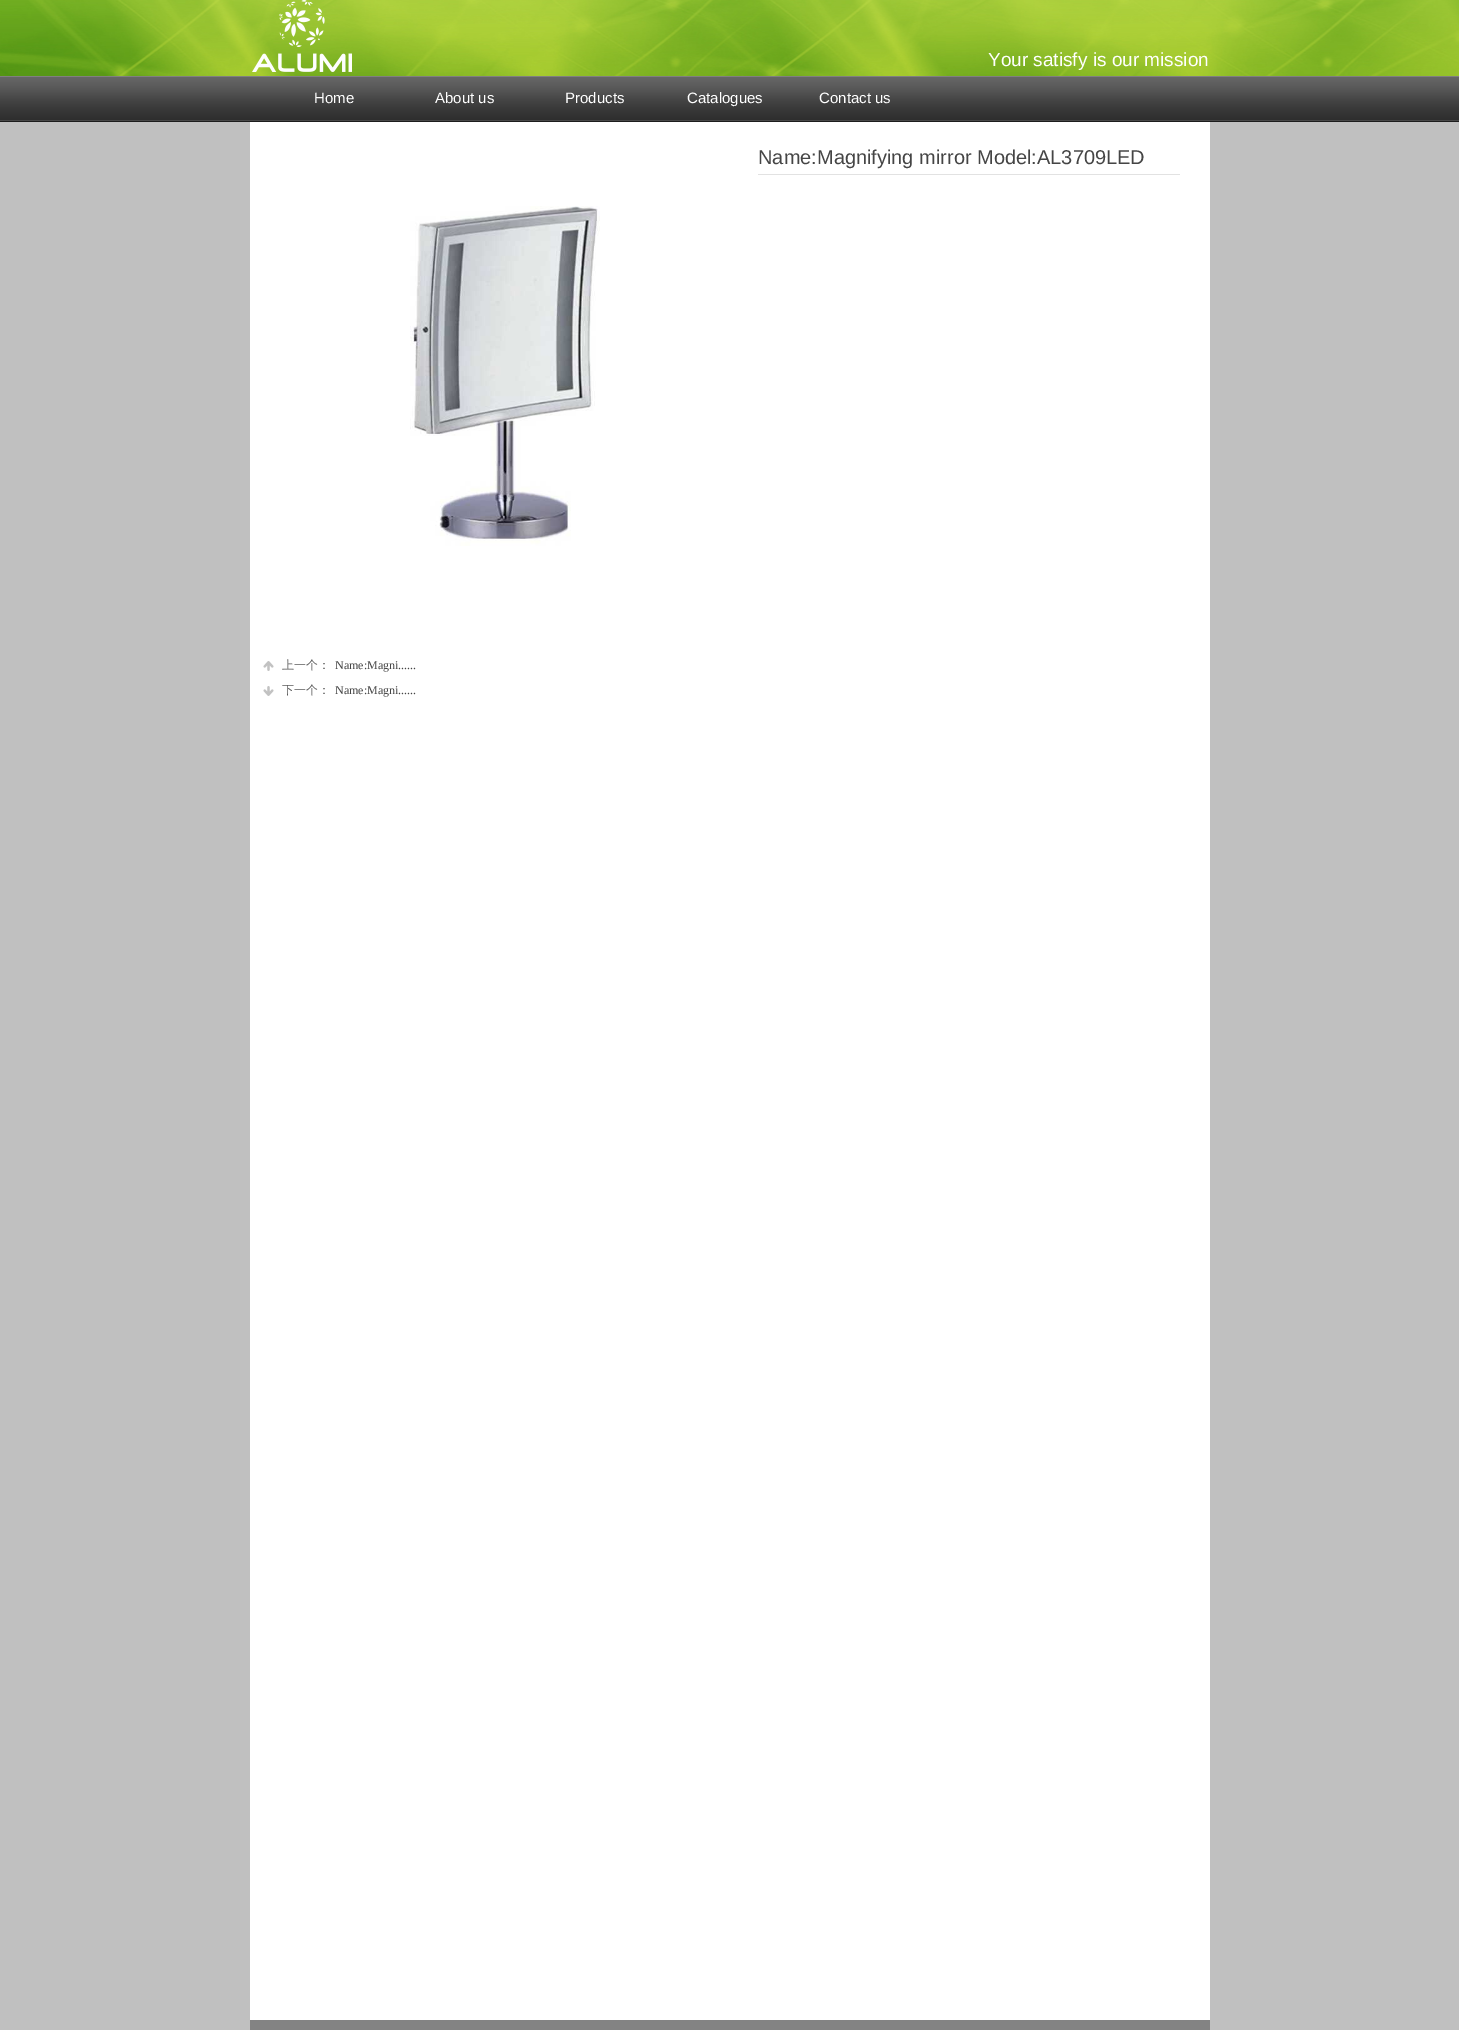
%!PS
<< /PageSize [1459 2030] >> setpagedevice
/C { dup -16 bitshift 255 div exch dup -8 bitshift 255 and 255 div exch 255 and 255 div setrgbcolor } def
/F { [ exch dup neg 0 0 3 -1 roll 0 0 ] selectfont } def
/T { moveto show } def
/R { rectfill } def
/I { 5 dict begin { /h /w /y /x /name } { exch def } forall
  gsave x y translate w h scale
  w h 8 [w 0 0 h 0 0] name (r) file false 3 colorimage grestore end } def
0 2030 translate 1 -1 scale
4 setmiterlimit
16#C0C0C0 C
0 0 1459 2030 R
16#FFFFFF C
250 122 960 1898 R
(2.rgb) 0 0 1459 76 I
(1.rgb) 252 0 100 72 I
/LiberationSans-Regular 19 F
(Your satisfy is our mission) 988 66 T
(3.rgb) 0 76 1459 46 I
/LiberationSans-Regular 15 F
(Home) 314 103 T
(About us) 435 103 T
(Products) 565 103 T
(Catalogues) 687 103 T
(Contact us) 819 103 T
16#E2E2E2 C
758 174 422 1 R
/LiberationSans-Regular 20 F
16#454545 C
(Name:Magnifying mirror Model:AL3709LED) 758 164 T
(4.rgb) 410 206 190 340 I
16#C2C2C2 C
263 661 11 10 R
(5.rgb) 263 661 11 10 I
/WenQuanYiZenHei-Medium 12 F
16#595959 C
(上一个：) 282 669 T
/LiberationSerif-Regular 12 F
16#454545 C
(Name:Magni......) 335 669 T
16#C2C2C2 C
263 686 11 10 R
(6.rgb) 263 686 11 10 I
/WenQuanYiZenHei-Medium 12 F
16#595959 C
(下一个：) 282 694 T
/LiberationSerif-Regular 12 F
16#454545 C
(Name:Magni......) 335 694 T
16#838383 C
250 2020 960 10 R
showpage
